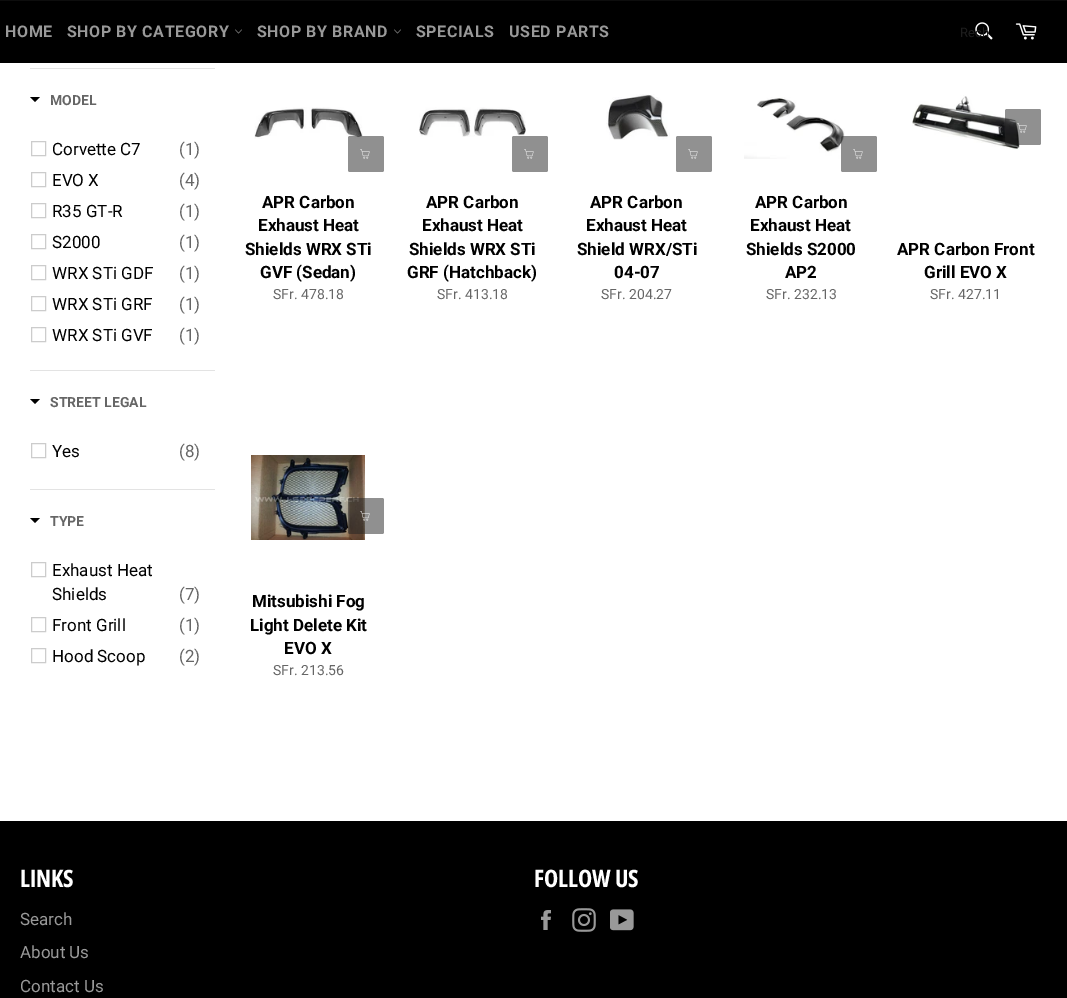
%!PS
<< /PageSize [1067 998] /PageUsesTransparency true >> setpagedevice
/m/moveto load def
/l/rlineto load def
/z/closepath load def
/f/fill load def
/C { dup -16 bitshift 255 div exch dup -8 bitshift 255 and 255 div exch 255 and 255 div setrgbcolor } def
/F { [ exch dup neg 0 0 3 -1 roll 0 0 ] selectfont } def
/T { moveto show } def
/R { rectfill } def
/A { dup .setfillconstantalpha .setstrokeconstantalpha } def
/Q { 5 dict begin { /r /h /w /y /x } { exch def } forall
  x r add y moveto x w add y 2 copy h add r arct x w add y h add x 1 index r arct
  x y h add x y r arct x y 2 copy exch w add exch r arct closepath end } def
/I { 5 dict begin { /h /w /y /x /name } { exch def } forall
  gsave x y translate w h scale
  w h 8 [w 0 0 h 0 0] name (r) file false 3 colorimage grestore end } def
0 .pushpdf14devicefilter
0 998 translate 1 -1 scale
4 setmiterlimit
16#FFFFFF C
0 0 1067 998 R
16#000000 C
0 1 1067 62 R
16#0D0D0D C
0 0 1067 1 R
/Roboto-Bold 16 F
16#999999 C
5 37 m .6 0 (HOME) ashow
67 37 m .6 0 (SHOP BY CATEGORY) ashow
(1.rgb) 235 29 7 5 I
257 37 m .6 0 (SHOP BY BRAND) ashow
(1.rgb) 394 29 7 5 I
416 37 m .6 0 (SPECIALS) ashow
509 37 m .6 0 (USED PARTS) ashow
(2.rgb) 975 22 18 18 I
/Roboto-Regular 13 F
16#1D1D1D C
(Rech) 960 37 T
(3.rgb) 1015 23 22 17 I
16#E3E3E3 C
30 68 185 1 R
16#000000 C
30 97 m 10 0 l -5 5 l z f
/Roboto-Bold 14 F
16#666666 C
(MODEL) 50 105 T
16#CCCCCC C
31.5 141.5 14 14 rectstroke
/Roboto-Regular 17 F
16#000000 C
(Corvette C7) 52 155 T
16#666666 C
(\(1\)) 179 155 T
16#CCCCCC C
31.5 172.5 14 14 rectstroke
16#000000 C
(EVO X) 52 186 T
16#666666 C
(\(4\)) 179 186 T
16#CCCCCC C
31.5 203.5 14 14 rectstroke
16#000000 C
(R35 GT-R) 52 217 T
16#666666 C
(\(1\)) 179 217 T
16#CCCCCC C
31.5 234.5 14 14 rectstroke
16#000000 C
(S2000) 52 248 T
16#666666 C
(\(1\)) 179 248 T
16#CCCCCC C
31.5 265.5 14 14 rectstroke
16#000000 C
(WRX STi GDF) 52 279 T
16#666666 C
(\(1\)) 179 279 T
16#CCCCCC C
31.5 296.5 14 14 rectstroke
16#000000 C
(WRX STi GRF) 52 310 T
16#666666 C
(\(1\)) 179 310 T
16#CCCCCC C
31.5 327.5 14 14 rectstroke
16#000000 C
(WRX STi GVF) 52 341 T
16#666666 C
(\(1\)) 179 341 T
16#E3E3E3 C
30 370 185 1 R
16#000000 C
30 399 m 10 0 l -5 5 l z f
/Roboto-Bold 14 F
16#666666 C
(STREET LEGAL) 50 407 T
16#CCCCCC C
31.5 443.5 14 14 rectstroke
/Roboto-Regular 17 F
16#000000 C
(Yes) 52 457 T
16#666666 C
(\(8\)) 179 457 T
16#E3E3E3 C
30 489 185 1 R
16#000000 C
30 518 m 10 0 l -5 5 l z f
/Roboto-Bold 14 F
16#666666 C
(TYPE) 50 526 T
16#CCCCCC C
31.5 562.5 14 14 rectstroke
/Roboto-Regular 17 F
16#000000 C
(Exhaust Heat) 52 576 T
(Shields) 52 600 T
16#666666 C
(\(7\)) 179 600 T
16#CCCCCC C
31.5 617.5 14 14 rectstroke
16#000000 C
(Front Grill) 52 631 T
16#666666 C
(\(1\)) 179 631 T
16#CCCCCC C
31.5 648.5 14 14 rectstroke
16#000000 C
(Hood Scoop) 52 662 T
16#666666 C
(\(2\)) 179 662 T
(5.rgb) 254 107 109 32 I
0.5 A
16#222222 C
348 136 36 36 2 Q f
1 A
(4.rgb) 360 149 10 10 I
/Roboto-Bold 17 F
16#000000 C
(APR Carbon) 262 208 T
(Exhaust Heat) 258 231 T
(Shields WRX STi) 245 255 T
(GVF \(Sedan\)) 260 278 T
/Roboto-Regular 14 F
16#666666 C
(SFr. 478.18) 273 299 T
(7.rgb) 419 107 107 30 I
16#909090 C
512 136 36 36 2 Q f
(6.rgb) 524 149 10 10 I
/Roboto-Bold 17 F
16#000000 C
(APR Carbon) 426 208 T
(Exhaust Heat) 422 231 T
(Shields WRX STi) 409 255 T
(GRF \(Hatchback\)) 407 278 T
/Roboto-Regular 14 F
16#666666 C
(SFr. 413.18) 437 299 T
16#919191 C
676 136 36 36 2 Q f
(8.rgb) 688 149 10 10 I
(9.rgb) 606 94 64 46 I
/Roboto-Bold 17 F
16#000000 C
(APR Carbon) 590 208 T
(Exhaust Heat) 586 231 T
(Shield WRX/STi) 577 255 T
(04-07) 614 278 T
/Roboto-Regular 14 F
16#666666 C
(SFr. 204.27) 601 299 T
(10.rgb) 744 97 101 62 I
0.5 A
16#222222 C
841 136 36 36 2 Q f
1 A
(4.rgb) 853 149 10 10 I
/Roboto-Bold 17 F
16#000000 C
(APR Carbon) 755 208 T
(Exhaust Heat) 750 231 T
(Shields S2000) 746 255 T
(AP2) 785 278 T
/Roboto-Regular 14 F
16#666666 C
(SFr. 232.13) 766 299 T
(12.rgb) 912 95 108 55 I
0.5 A
16#222222 C
1005 109 36 36 2 Q f
1 A
(11.rgb) 1017 123 10 10 I
/Roboto-Bold 17 F
16#000000 C
(APR Carbon Front) 897 255 T
(Grill EVO X) 924 278 T
/Roboto-Regular 14 F
16#666666 C
(SFr. 427.11) 930 299 T
(14.rgb) 251 455 114 85 I
0.5 A
16#222222 C
348 498 36 36 2 Q f
1 A
(13.rgb) 360 511 10 10 I
/Roboto-Bold 17 F
16#000000 C
(Mitsubishi Fog) 252 607 T
(Light Delete Kit) 250 631 T
(EVO X) 284 654 T
/Roboto-Regular 14 F
16#666666 C
(SFr. 213.56) 273 675 T
16#000000 C
0 821 1067 177 R
/OpenSansCondensed-Bold 24 F
16#FFFFFF C
(LINKS) 20 887 T
/Roboto-Regular 17 F
16#999999 C
(Search) 20 925 T
(About Us) 20 958 T
(Contact Us) 20 992 T
/OpenSansCondensed-Bold 24 F
16#FFFFFF C
(FOLLOW US) 534 887 T
(15.rgb) 541 910 10 20 I
(16.rgb) 572 908 24 24 I
(17.rgb) 610 909 24 22 I
.poppdf14devicefilter showpage
